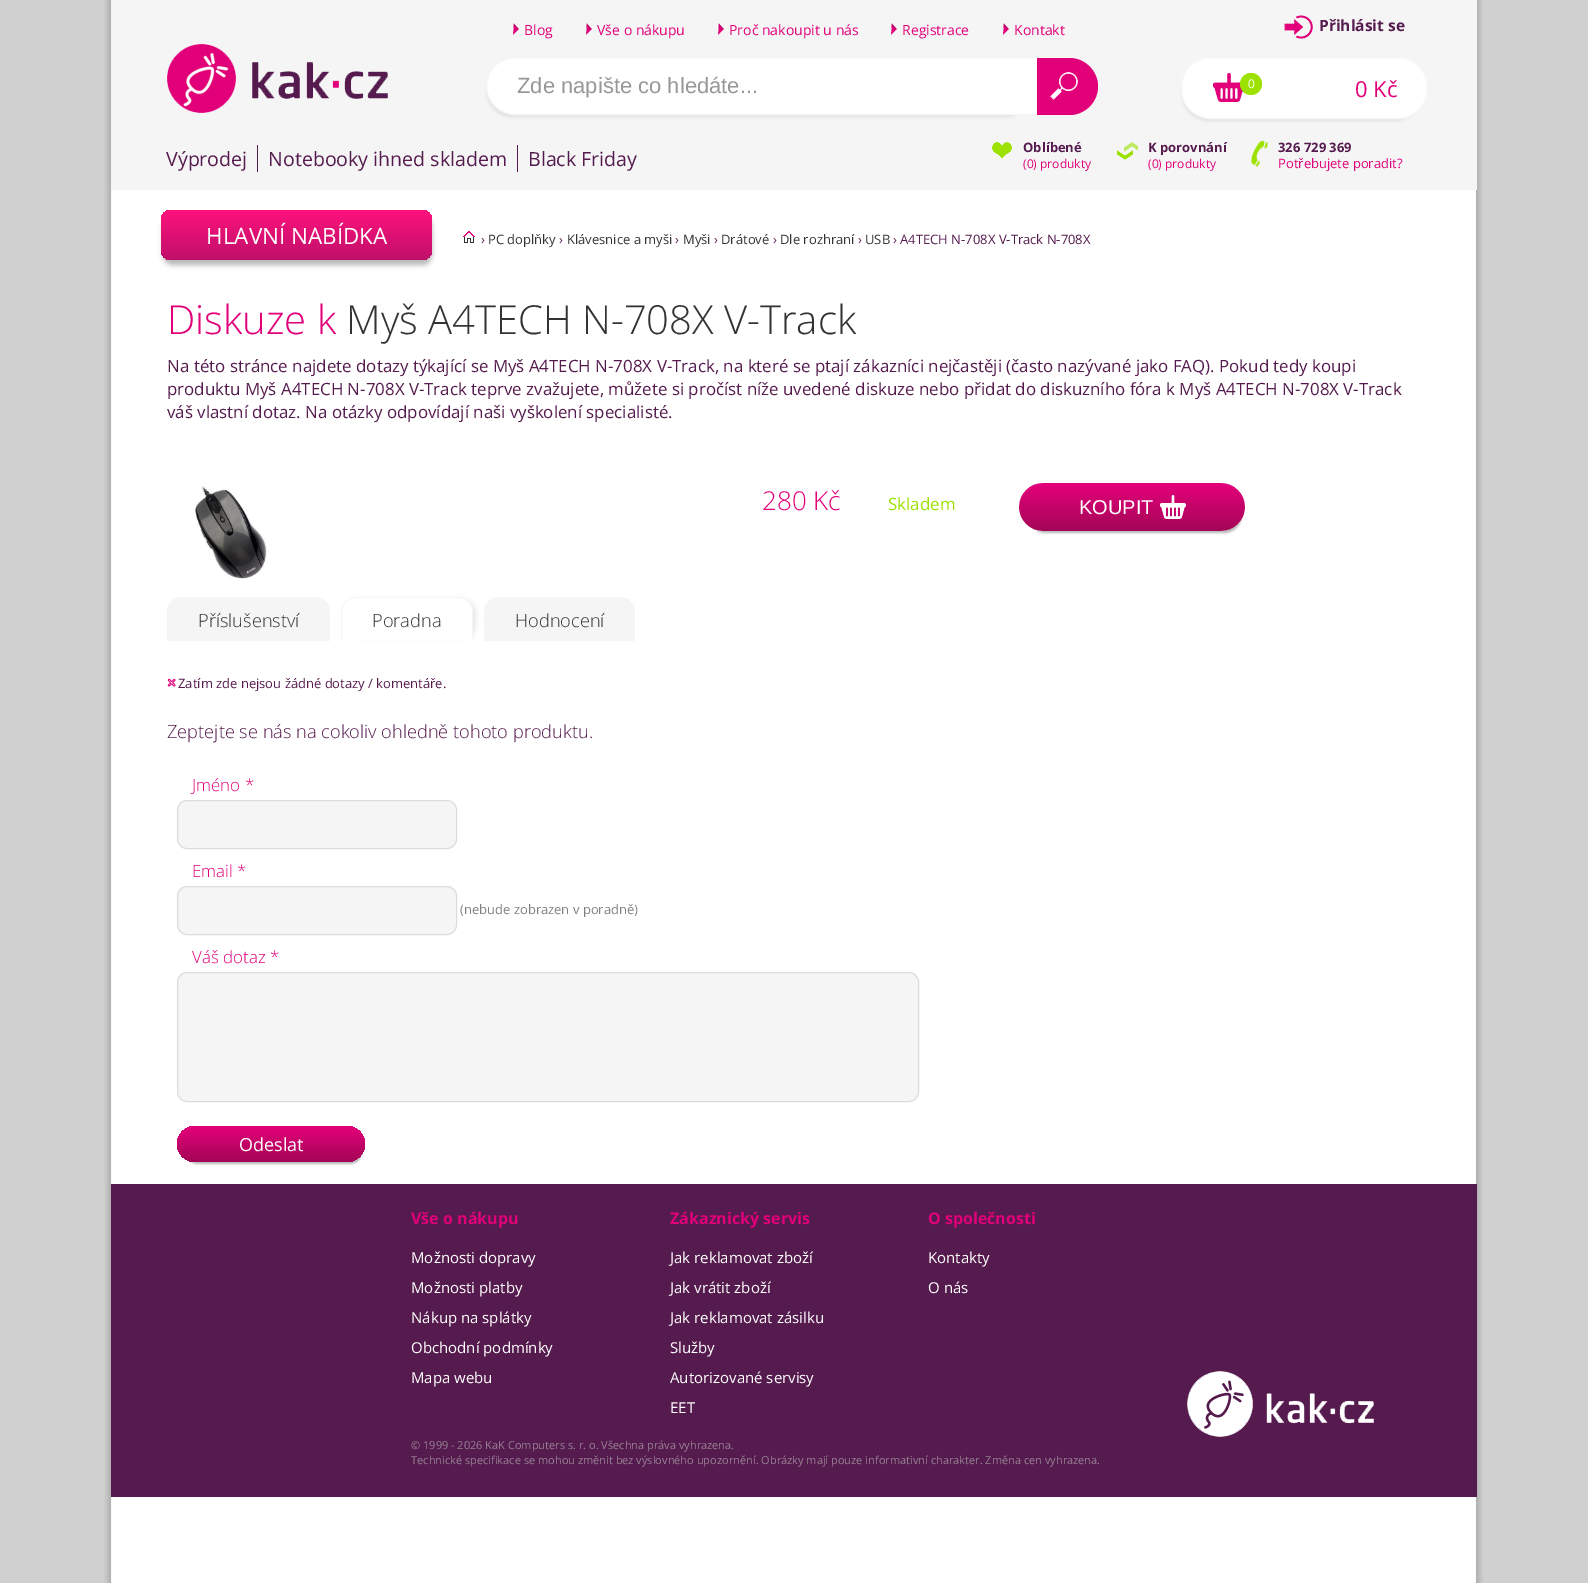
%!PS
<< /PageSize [1588 1583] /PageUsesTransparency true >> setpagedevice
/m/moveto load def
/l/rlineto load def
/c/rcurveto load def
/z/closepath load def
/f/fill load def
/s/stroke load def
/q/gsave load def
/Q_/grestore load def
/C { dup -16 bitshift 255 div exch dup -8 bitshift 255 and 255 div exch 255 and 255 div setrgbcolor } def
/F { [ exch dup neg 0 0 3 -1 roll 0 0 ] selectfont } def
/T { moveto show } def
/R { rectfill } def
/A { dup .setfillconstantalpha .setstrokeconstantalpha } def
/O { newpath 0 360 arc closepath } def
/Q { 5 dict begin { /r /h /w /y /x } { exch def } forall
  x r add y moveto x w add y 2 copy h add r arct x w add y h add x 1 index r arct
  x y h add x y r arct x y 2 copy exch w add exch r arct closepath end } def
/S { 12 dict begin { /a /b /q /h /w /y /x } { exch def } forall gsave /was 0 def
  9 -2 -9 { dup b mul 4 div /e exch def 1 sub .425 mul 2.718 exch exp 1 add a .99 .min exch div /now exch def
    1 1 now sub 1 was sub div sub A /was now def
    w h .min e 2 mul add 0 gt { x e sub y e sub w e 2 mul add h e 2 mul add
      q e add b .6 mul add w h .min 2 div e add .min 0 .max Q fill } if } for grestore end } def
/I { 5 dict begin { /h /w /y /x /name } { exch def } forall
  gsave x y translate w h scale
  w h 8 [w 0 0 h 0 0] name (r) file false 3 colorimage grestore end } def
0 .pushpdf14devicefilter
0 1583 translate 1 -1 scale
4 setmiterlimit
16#D0D0D0 C
0 0 1588 1583 R
(1.rgb) 104 0 1379 1583 I
16#F5F5F5 C
111 0 1366 190 R
(2.rgb) 512 23 7 13 I
/OpenSans-Regular 14 F
16#E1007A C
(Blog) 524 35 T
(2.rgb) 585 23 7 13 I
(Vše o nákupu) 597 35 T
(2.rgb) 717 23 7 13 I
(Proč nakoupit u nás) 729 35 T
(2.rgb) 890 23 7 13 I
(Registrace) 902 35 T
(2.rgb) 1002 23 7 13 I
(Kontakt) 1014 35 T
(3.rgb) 1284 15 29 24 I
/OpenSans-Bold 15.5 F
16#551B4E C
(Přihlásit se) 1319 31 T
(4.rgb) 167 44 221 69 I
16#E2E2E2 C
487 67 544 50 25 1.5 1 S
16#FFFFFF C
515 57.5 m 522.5 0 l 0 57 l -522.5 0 l -15.5 0 -28.5 -13 -28.5 -28.5 c 0 -15.5 13 -28.5 28.5 -28.5 c z q f Q_
16#F5F5F5 C
s
/LiberationSans-Regular 22 F
16#979797 C
(Zde napište co hledáte...) 517 93 T
16#E2007A C
1037 58 m 32.5 0 l 15.5 0 28.5 13 28.5 28.5 c 0 15.5 -13 28.5 -28.5 28.5 c -32.5 0 l z f
(5.rgb) 1050 72 28 28 I
16#E2E2E2 C
1182 67 239 54 26 1.5 1 S
16#FFFFFF C
1181 57 247 62 30 Q f
(6.rgb) 1213 72 34 30 I
16#F5F5F5 C
1181.5 57.5 246 61 29.5 Q s
16#9CE100 C
1251 84 11 O f
/OpenSans-Regular 12 F
16#FFFFFF C
(0) 1248 88 T
/OpenSans-Regular 22 F
16#E1007A C
(0 Kč) 1355 97 T
16#551B4E C
257 145 1 27 R
/OpenSans-Regular 19.6 F
(Výprodej) 166 166 T
517 145 1 27 R
(Notebooky ihned skladem) 268 166 T
(Black Friday) 528 166 T
(7.rgb) 992 142 20 17 I
/OpenSans-Bold 13 F
(Oblíbené) 1023 152 T
/OpenSans-Regular 12 F
16#E1007A C
(\(0\) produkty) 1023 168 T
(8.rgb) 1117 142 21 18 I
/OpenSans-Bold 13 F
16#551B4E C
(K porovnání) 1148 152 T
/OpenSans-Regular 12 F
16#E1007A C
(\(0\) produkty) 1148 168 T
(9.rgb) 1251 140 17 27 I
/OpenSans-Bold 13 F
16#551B4E C
(326 729 369) 1278 152 T
/OpenSans-Regular 13 F
16#E1007A C
(Potřebujete poradit?) 1278 168 T
16#B7B7B7 C
163 217 269 48 9 2.5 1 S
q 161 210 271 50 10 Q clip newpath
<< /ShadingType 2 /ColorSpace /DeviceRGB /Coords [297 210 297 260] /Extend [true true] /Function << /FunctionType 2 /Domain [0 1] /C0 [.992 .071 .49] /C1 [.749 .063 .412] /N 1 >> >> shfill Q_
/OpenSans-Regular 22.5 F
16#FFFFFF C
(HLAVNÍ NABÍDKA) 206 244 T
(10.rgb) 463 231 12 12 I
/OpenSans-Regular 13 F
16#551B4E C
(›) 481 244 T
16#333333 C
(PC doplňky) 488 244 T
16#551B4E C
(›) 559 244 T
16#333333 C
(Klávesnice a myši) 567 244 T
16#551B4E C
(›) 675 244 T
16#333333 C
(Myši) 683 244 T
16#551B4E C
(›) 714 244 T
16#333333 C
(Drátové) 721 244 T
16#551B4E C
(›) 773 244 T
16#333333 C
(Dle rozhraní) 780 244 T
16#551B4E C
(›) 858 244 T
16#333333 C
(USB) 865 244 T
16#551B4E C
(› A4TECH N-708X V-Track N-708X) 893 244 T
/OpenSans-Light 40 F
16#E1007A C
(Diskuze k) 167 334 T
16#333333 C
(Myš A4TECH N-708X V-Track) 346 334 T
/OpenSans-Regular 16.9 F
16#551B4E C
(Na této stránce najdete dotazy týkající se Myš A4TECH N-708X V-Track, na které se ptají zákazníci nejčastěji \(často nazývané jako FAQ\). Pokud tedy koupi) 167 372 T
(produktu Myš A4TECH N-708X V-Track teprve zvažujete, můžete si pročíst níže uvedené diskuze nebo přidat do diskuzního fóra k Myš A4TECH N-708X V-Track) 167 395 T
(váš vlastní dotaz. Na otázky odpovídají naši vyškolení specialisté.) 167 418 T
(11.rgb) 195 486 72 93 I
/OpenSans-Light 26 F
16#E1007A C
(280 Kč) 762 510 T
/OpenSans-Regular 16.9 F
16#9CE100 C
(Skladem) 888 510 T
16#B7B7B7 C
1028 497 214 36 18 1 1 S
(12.rgb) 1019 483 226 48 I
/LiberationSans-Regular 20 F
16#FFFFFF C
(KOUPIT) 1079 514 T
16#F5F5F5 C
182 597 m 133 0 l 8.5 0 15 6.5 15 15 c 0 29 l -163 0 l 0 -29 l 0 -8.5 6.5 -15 15 -15 c z f
/OpenSans-Light 18.2 F
16#333333 C
(Příslušenství) 198 627 T
16#E2DFE0 C
349 600 126 38 12 3 1 S
16#FFFFFF C
356 597 m 102 0 l 8.5 0 15 6.5 15 15 c 0 29 l -132 0 l 0 -29 l 0 -8.5 6.5 -15 15 -15 c z f
16#F5F5F5 C
356 597 m 102 0 l 8 0 15 7 15 15 c 0 29 l -132 0 l 0 -29 l 0 -8 7 -15 15 -15 c z 356 598 m 102 0 l 8 0 14 6 14 14 c 0 29 l -130 0 l 0 -29 l 0 -8 6 -14 14 -14 c z eofill
16#333333 C
(Poradna) 372 627 T
16#F5F5F5 C
499 597 m 121 0 l 8.5 0 15 6.5 15 15 c 0 29 l -151 0 l 0 -29 l 0 -8.5 6.5 -15 15 -15 c z f
16#333333 C
(Hodnocení) 515 627 T
(13.rgb) 167 678 9 9 I
/OpenSans-Regular 13 F
16#551B4E C
(Zatím zde nejsou žádné dotazy / komentáře.) 178 688 T
/OpenSans-Light 18.2 F
(Zeptejte se nás na cokoliv ohledně tohoto produktu.) 167 738 T
/OpenSans-Light 16.9 F
16#E1007A C
(Jméno *) 192 791 T
16#F5F5F5 C
177.5 800.5 279 48 9.5 Q q f Q_
16#DCDCDC C
s
16#E1007A C
(Email *) 192 877 T
16#F5F5F5 C
177.5 886.5 279 48 9.5 Q q f Q_
16#DCDCDC C
s
/OpenSans-Regular 13 F
16#808080 C
(\(nebude zobrazen v poradně\)) 460 914 T
/OpenSans-Light 16.9 F
16#E1007A C
(Váš dotaz *) 192 963 T
16#F5F5F5 C
177.5 972.5 741 129 9.5 Q q f Q_
16#DCDCDC C
s
16#B7B7B7 C
186 1140 176 24 12 1 1 S
q 177 1126 188 36 18 Q clip newpath
<< /ShadingType 2 /ColorSpace /DeviceRGB /Coords [271 1126 271 1162] /Extend [true true] /Function << /FunctionType 3 /Domain [0 1] /Functions [<< /FunctionType 2 /Domain [0 1] /C0 [.886 0 .475] /C1 [.886 0 .475] /N 1 >> << /FunctionType 2 /Domain [0 1] /C0 [.886 0 .475] /C1 [.635 .024 .337] /N 1 >>] /Bounds [.05] /Encode [0 1 0 1] >> >> shfill Q_
/OpenSans-Regular 18 F
16#FFFFFF C
(Odeslat) 239 1151 T
16#551B4E C
111 1184 1366 313 R
/OpenSans-Bold 16 F
16#E1007A C
(Vše o nákupu) 411 1224 T
/OpenSans-Regular 15 F
16#FFFFFF C
(Možnosti dopravy) 411 1263 T
(Možnosti platby) 411 1293 T
(Nákup na splátky) 411 1323 T
(Obchodní podmínky) 411 1353 T
(Mapa webu) 411 1383 T
/OpenSans-Bold 16 F
16#E1007A C
(Zákaznický servis) 670 1224 T
/OpenSans-Regular 15 F
16#FFFFFF C
(Jak reklamovat zboží) 670 1263 T
(Jak vrátit zboží) 670 1293 T
(Jak reklamovat zásilku) 670 1323 T
(Služby) 670 1353 T
(Autorizované servisy) 670 1383 T
(EET) 670 1413 T
/OpenSans-Bold 16 F
16#E1007A C
(O společnosti) 928 1224 T
/OpenSans-Regular 15 F
16#FFFFFF C
(Kontakty) 928 1263 T
(O nás) 928 1293 T
(14.rgb) 1187 1371 187 66 I
/OpenSans-Regular 11 F
16#988094 C
(© 1999 - 2026 KaK Computers s. r. o. Všechna práva vyhrazena.) 411 1449 T
(Technické specifikace se mohou změnit bez výslovného upozornění. Obrázky mají pouze informativní charakter. Změna cen vyhrazena.) 411 1464 T
.poppdf14devicefilter showpage
